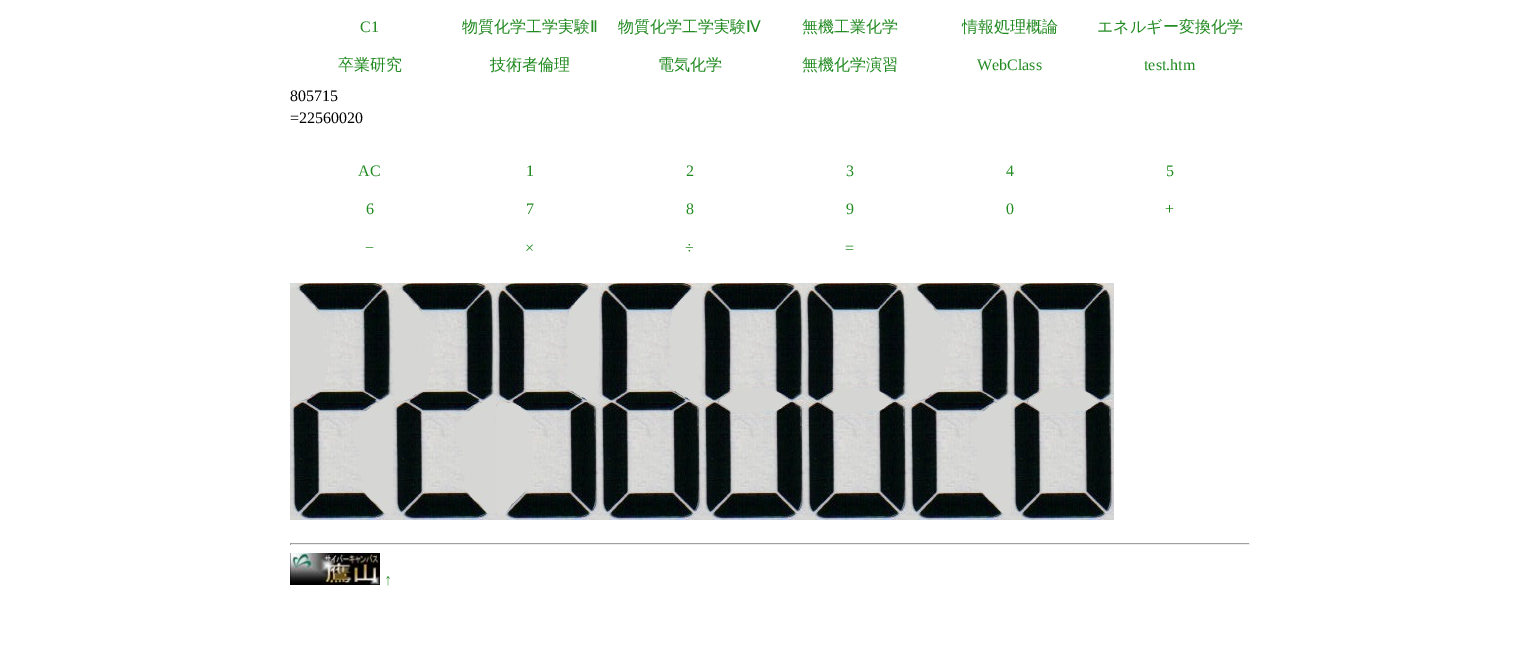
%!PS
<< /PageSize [1539 657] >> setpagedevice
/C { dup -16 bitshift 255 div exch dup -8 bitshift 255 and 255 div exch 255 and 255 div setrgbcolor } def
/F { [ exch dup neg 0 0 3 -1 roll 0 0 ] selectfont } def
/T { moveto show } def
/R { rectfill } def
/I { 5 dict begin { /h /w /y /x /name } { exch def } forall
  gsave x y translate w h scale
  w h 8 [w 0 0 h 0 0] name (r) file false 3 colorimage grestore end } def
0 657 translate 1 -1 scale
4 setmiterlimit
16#FFFFFF C
0 0 1539 657 R
/LiberationSerif-Regular 16 F
16#228B22 C
(C1) 360 32 T
/WenQuanYiZenHei-Medium 16 F
(物質化学工学実験) 462 32 T
/DejaVuSans-Regular 16 F
(Ⅱ) 590 32 T
/WenQuanYiZenHei-Medium 16 F
(物質化学工学実験) 618 32 T
/DejaVuSans-Regular 16 F
(Ⅳ) 746 32 T
/WenQuanYiZenHei-Medium 16 F
(無機工業化学) 802 32 T
(情報処理概論) 962 32 T
(エネルギー変換化学) 1097 32 T
(卒業研究) 338 70 T
(技術者倫理) 490 70 T
(電気化学) 658 70 T
(無機化学演習) 802 70 T
/LiberationSerif-Regular 16 F
(WebClass) 977 70 T
(test.htm) 1144 70 T
16#000000 C
(805715) 290 101 T
(=22560020) 290 123 T
16#228B22 C
(AC) 358 176 T
(1) 526 176 T
(2) 686 176 T
(3) 846 176 T
(4) 1006 176 T
(5) 1166 176 T
(6) 366 214 T
(7) 526 214 T
(8) 686 214 T
(9) 846 214 T
(0) 1006 214 T
(+) 1165 214 T
(−) 365 253 T
(×) 525 253 T
(÷) 685 253 T
(=) 845 253 T
(1.rgb) 290 283 103 237 I
(1.rgb) 393 283 103 237 I
(2.rgb) 496 283 103 237 I
(3.rgb) 599 283 103 237 I
(4.rgb) 702 283 103 237 I
(4.rgb) 805 283 103 237 I
(1.rgb) 908 283 103 237 I
(4.rgb) 1011 283 103 237 I
16#9F9F9F C
290 543 960 1 R
16#EEEEEE C
1249 543 1 2 R
290 544 960 1 R
16#9F9F9F C
290 543 1 2 R
(5.rgb) 290 553 90 32 I
16#228B22 C
(↑) 384 585 T
showpage
